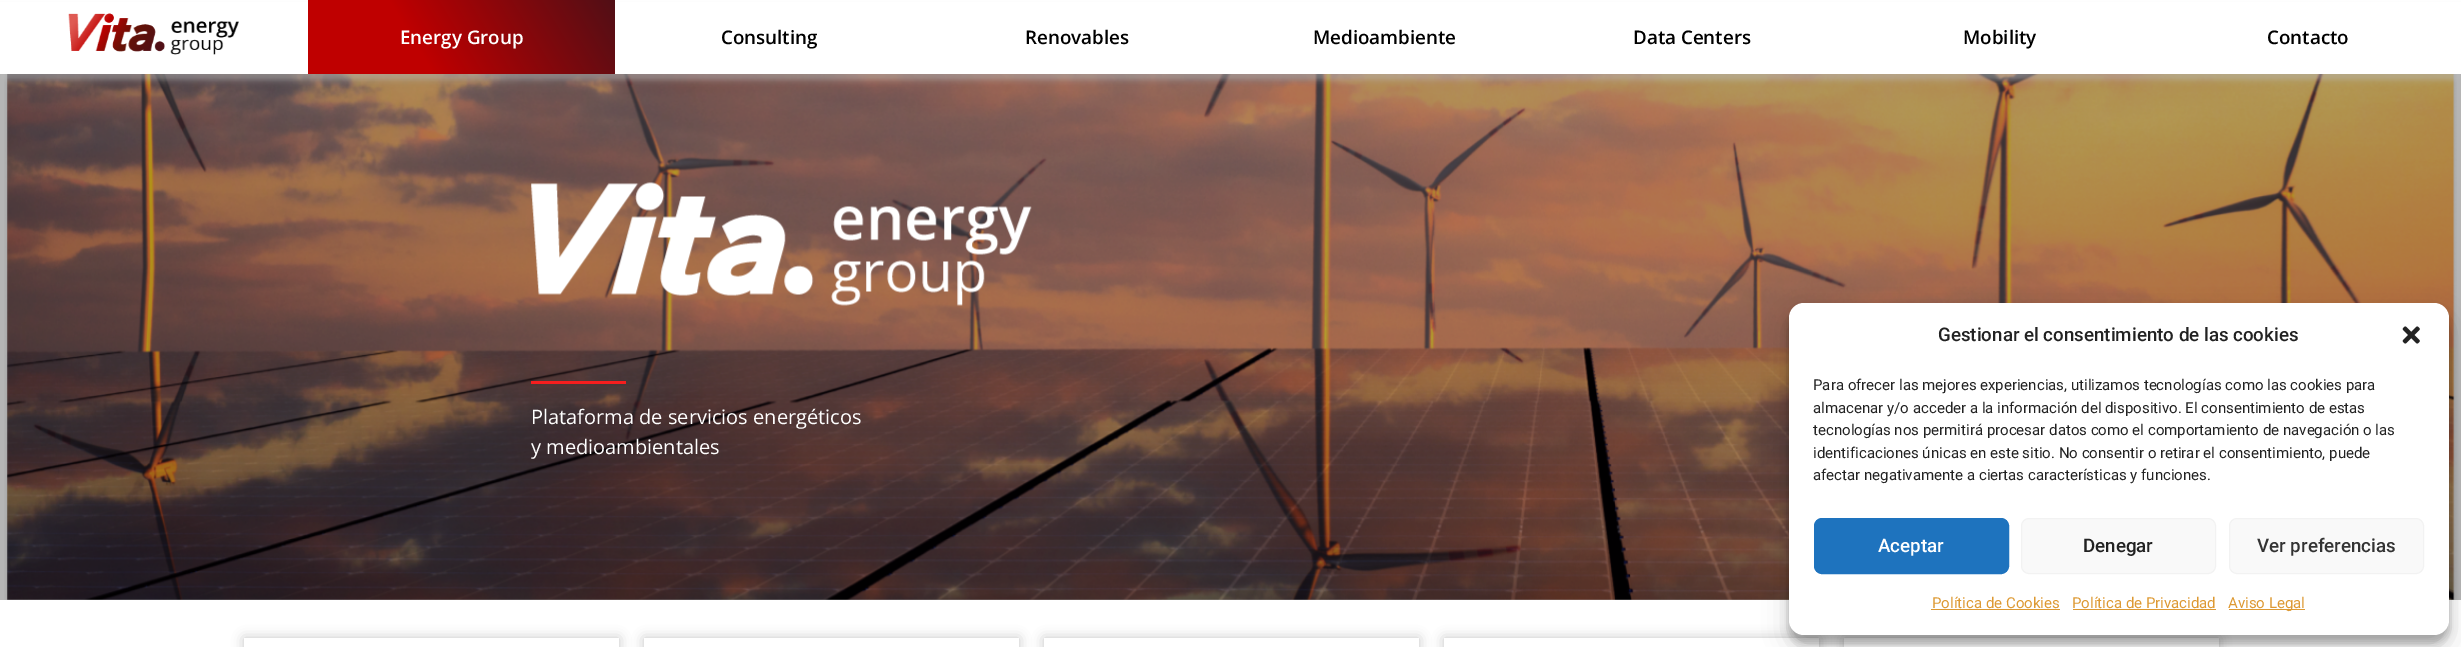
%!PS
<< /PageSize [2461 647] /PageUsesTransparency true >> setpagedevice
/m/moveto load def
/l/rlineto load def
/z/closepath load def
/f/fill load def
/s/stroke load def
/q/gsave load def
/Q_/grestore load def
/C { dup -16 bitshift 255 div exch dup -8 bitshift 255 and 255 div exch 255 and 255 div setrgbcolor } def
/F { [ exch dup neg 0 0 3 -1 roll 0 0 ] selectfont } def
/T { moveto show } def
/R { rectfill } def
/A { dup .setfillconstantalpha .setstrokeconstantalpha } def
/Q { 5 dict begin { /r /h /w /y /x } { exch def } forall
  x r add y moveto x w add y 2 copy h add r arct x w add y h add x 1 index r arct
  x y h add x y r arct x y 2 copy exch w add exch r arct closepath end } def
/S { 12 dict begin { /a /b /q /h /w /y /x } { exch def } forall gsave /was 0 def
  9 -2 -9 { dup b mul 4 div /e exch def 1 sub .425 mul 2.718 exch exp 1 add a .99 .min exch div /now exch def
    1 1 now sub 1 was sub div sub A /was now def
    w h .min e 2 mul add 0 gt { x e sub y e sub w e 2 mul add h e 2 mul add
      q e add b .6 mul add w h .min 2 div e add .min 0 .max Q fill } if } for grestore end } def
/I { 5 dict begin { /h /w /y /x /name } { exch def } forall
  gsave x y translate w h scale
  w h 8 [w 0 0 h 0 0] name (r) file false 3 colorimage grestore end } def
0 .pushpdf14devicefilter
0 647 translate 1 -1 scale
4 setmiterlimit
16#FFFFFF C
0 0 2461 647 R
16#B5B5B5 C
0 74 2461 526 R
(2.rgb) 4 74 2453 526 I
16#B9B9B9 C
0 6 2461 74 0 3 .5 S
16#FFFFFF C
0 2 2461 72 R
(1.rgb) 68 13 171 42 I
q 308 0 m 307 0 l 0 74 l -307 0 l z clip newpath
<< /ShadingType 2 /ColorSpace /DeviceRGB /Coords [332 115 590 -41] /Extend [true true] /Function << /FunctionType 3 /Domain [0 1] /Functions [<< /FunctionType 2 /Domain [0 1] /C0 [.749 0 0] /C1 [.749 0 0] /N 1 >> << /FunctionType 2 /Domain [0 1] /C0 [.749 0 0] /C1 [.318 .059 .086] /N 1 >>] /Bounds [.36] /Encode [0 1 0 1] >> >> shfill Q_
/OpenSans-SemiBold 18.75 F
(Energy Group) 400 44 T
16#000000 C
(Consulting) 721 44 T
(Renovables) 1025 44 T
(Medioambiente) 1313 44 T
(Data Centers) 1633 44 T
(Mobility) 1963 44 T
(Contacto) 2267 44 T
(3.rgb) 531 182 501 124 I
16#F61E1E C
531 381 95 3 R
/OpenSans-Regular 20 F
16#FFFFFF C
(Plataforma de servicios energéticos) 531 424 T
(y medioambientales) 531 454 T
q
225 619 m 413 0 l 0 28 l -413 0 l z 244 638 m 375 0 l 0 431 l -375 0 l z eoclip newpath
16#8C8C8C C
244 638 375 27 0 6 .5 S
Q_
q
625 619 m 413 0 l 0 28 l -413 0 l z 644 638 m 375 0 l 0 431 l -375 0 l z eoclip newpath
16#8C8C8C C
644 638 375 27 0 6 .5 S
Q_
q
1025 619 m 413 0 l 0 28 l -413 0 l z 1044 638 m 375 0 l 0 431 l -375 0 l z eoclip newpath
16#8C8C8C C
1044 638 375 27 0 6 .5 S
Q_
q
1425 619 m 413 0 l 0 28 l -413 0 l z 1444 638 m 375 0 l 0 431 l -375 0 l z eoclip newpath
16#8C8C8C C
1444 638 375 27 0 6 .5 S
Q_
q
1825 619 m 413 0 l 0 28 l -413 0 l z 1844 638 m 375 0 l 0 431 l -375 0 l z eoclip newpath
16#8C8C8C C
1844 638 375 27 0 6 .5 S
Q_
16#000000 C
1789 310 660 333 15 4 .23 S
1789 315 660 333 15 12.5 .19 S
16#FFFFFF C
1789 303 660 332 15 Q f
/Roboto-Medium 18.75 F
16#222222 C
(Gestionar el consentimiento de las cookies) 1938 341 T
(4.rgb) 2402 326 18 18 I
/Roboto-Regular 15 F
(Para ofrecer las mejores experiencias, utilizamos tecnologías como las cookies para) 1813 390 T
(almacenar y/o acceder a la información del dispositivo. El consentimiento de estas) 1813 413 T
(tecnologías nos permitirá procesar datos como el comportamiento de navegación o las) 1813 435 T
(identificaciones únicas en este sitio. No consentir o retirar el consentimiento, puede) 1813 458 T
(afectar negativamente a ciertas características y funciones.) 1813 480 T
16#1E73BE C
1814.5 518.5 194 55 7.5 Q q f Q_
s
/Roboto-Medium 18.75 F
16#FFFFFF C
(Aceptar) 1878 552 T
16#F9F9F9 C
2021.5 518.5 194 55 7.5 Q q f Q_
16#F2F2F2 C
s
16#222222 C
(Denegar) 2083 552 T
16#F9F9F9 C
2229.5 518.5 194 55 7.5 Q q f Q_
16#F2F2F2 C
s
16#333333 C
(Ver preferencias) 2257 552 T
/Roboto-Regular 15 F
16#DD9933 C
(Política de Cookies) 1932 608 T
1931 609 129 1 R
(Política de Privacidad) 2072 608 T
2073 609 143 1 R
2229 609 76 1 R
(Aviso Legal) 2228 608 T
.poppdf14devicefilter showpage
